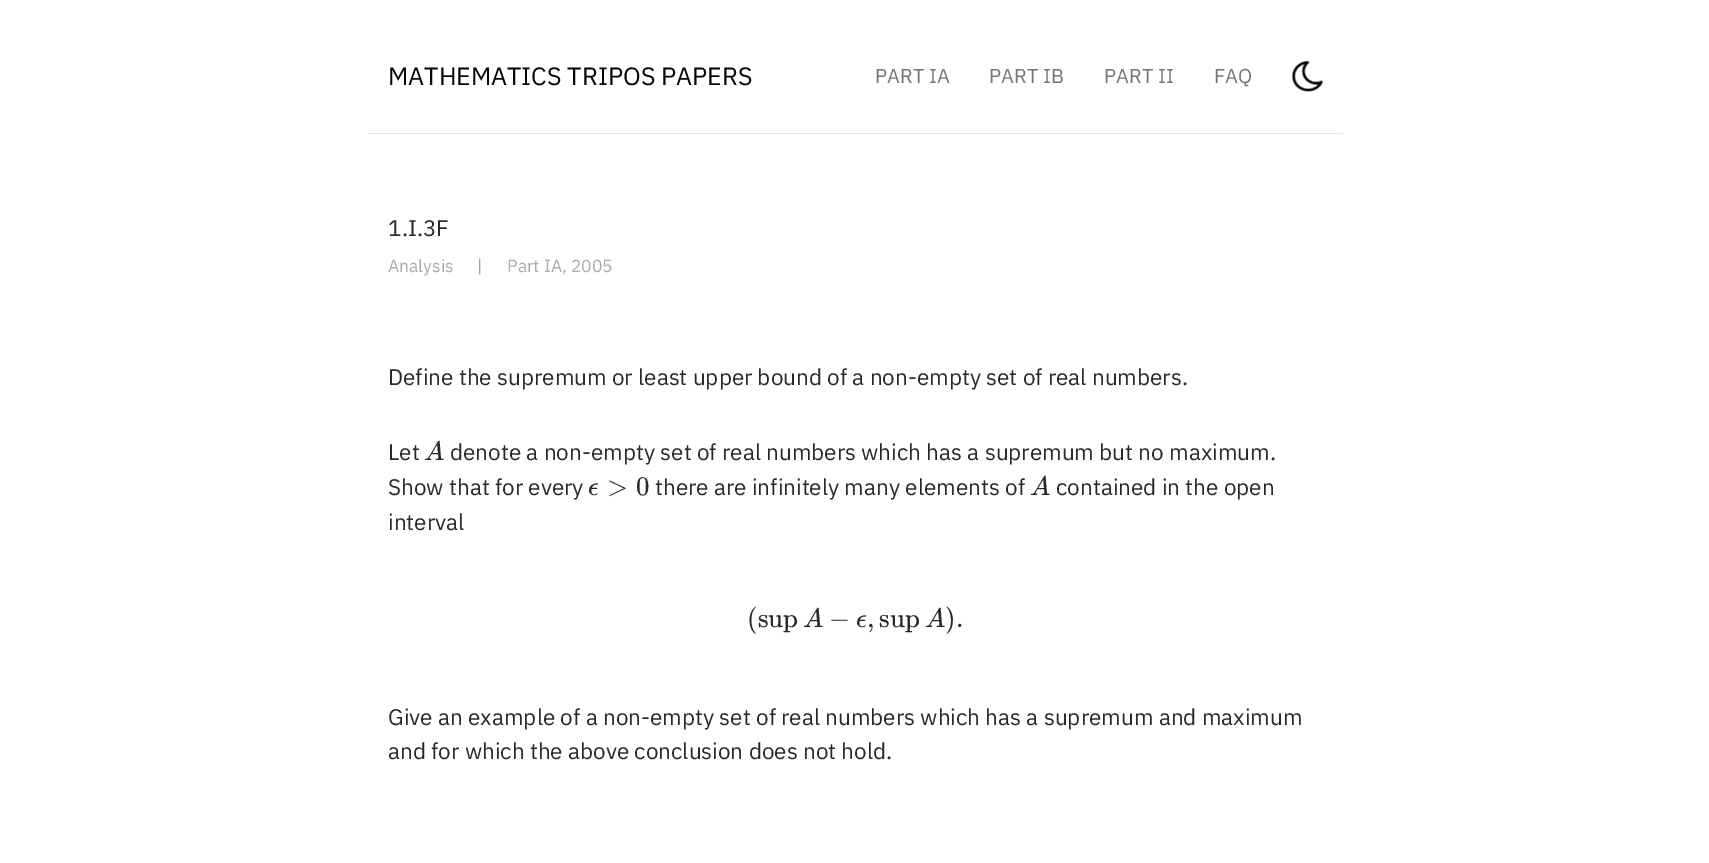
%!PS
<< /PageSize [1709 863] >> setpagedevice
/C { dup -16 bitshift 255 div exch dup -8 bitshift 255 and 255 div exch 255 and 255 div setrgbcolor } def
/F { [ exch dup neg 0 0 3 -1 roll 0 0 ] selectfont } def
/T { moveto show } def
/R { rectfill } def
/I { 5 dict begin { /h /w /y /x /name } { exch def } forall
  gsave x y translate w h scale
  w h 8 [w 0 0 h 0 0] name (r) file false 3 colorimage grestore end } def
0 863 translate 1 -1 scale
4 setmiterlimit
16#FFFFFF C
0 0 1709 863 R
16#E6E6E6 C
368 133 975 1 R
/IBMPlexSans-Regular 25 F
16#060606 C
(MATHEMATICS TRIPOS PAPERS) 388 85 T
/IBMPlexSans-Regular 20 F
16#757575 C
(PART IA) 875 83 T
(PART IB) 989 83 T
(PART II) 1104 83 T
(FAQ) 1214 83 T
(1.rgb) 1292 61 31 31 I
/IBMPlexSans-Regular 22.5 F
16#292929 C
(1.I.3F) 388 236 T
/IBMPlexSans-Regular 17.5 F
16#ACACAC C
(Analysis) 388 272 T
16#7F7F7F C
(|) 477 272 T
16#ACACAC C
(Part IA, 2005) 507 272 T
/IBMPlexSans-Regular 22.5 F
16#292929 C
(Define the supremum or least upper bound of a non-empty set of real numbers.) 388 385 T
(Let) 388 460 T
/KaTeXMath-Italic 27 F
(A) 424 460 T
/IBMPlexSans-Regular 22.5 F
(denote a non-empty set of real numbers which has a supremum but no maximum.) 450 460 T
(Show that for every) 388 495 T
/KaTeXMath-Italic 27 F
(ϵ) 588 495 T
/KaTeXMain-Regular 27 F
(>) 607 495 T
(0) 636 495 T
/IBMPlexSans-Regular 22.5 F
(there are infinitely many elements of) 655 495 T
/KaTeXMath-Italic 27 F
(A) 1030 495 T
/IBMPlexSans-Regular 22.5 F
(contained in the open) 1056 495 T
(interval) 388 530 T
/KaTeXMain-Regular 27 F
(\(sup) 747 627 T
/KaTeXMath-Italic 27 F
(A) 803 627 T
/KaTeXMain-Regular 27 F
(−) 829 627 T
/KaTeXMath-Italic 27 F
(ϵ) 856 627 T
/KaTeXMain-Regular 27 F
(,) 867 627 T
(sup) 879 627 T
/KaTeXMath-Italic 27 F
(A) 925 627 T
/KaTeXMain-Regular 27 F
(\).) 945 627 T
/IBMPlexSans-Regular 22.5 F
(Give an example of a non-empty set of real numbers which has a supremum and maximum) 388 725 T
(and for which the above conclusion does not hold.) 388 759 T
showpage
